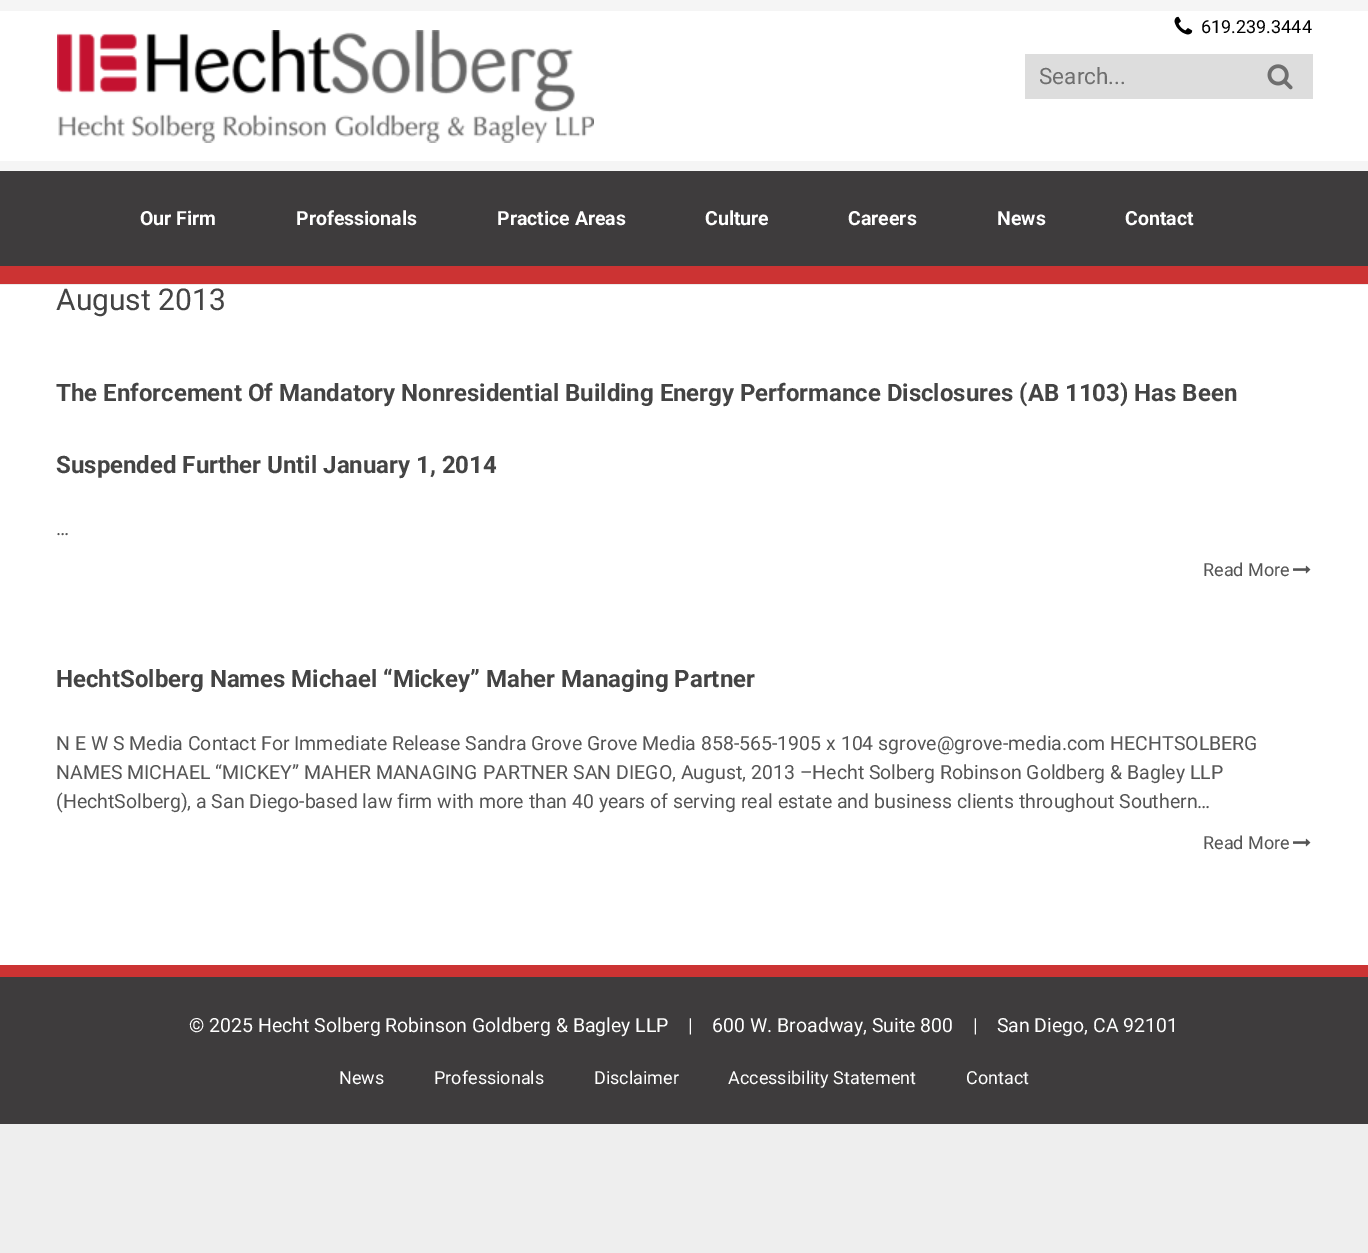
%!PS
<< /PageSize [1368 1253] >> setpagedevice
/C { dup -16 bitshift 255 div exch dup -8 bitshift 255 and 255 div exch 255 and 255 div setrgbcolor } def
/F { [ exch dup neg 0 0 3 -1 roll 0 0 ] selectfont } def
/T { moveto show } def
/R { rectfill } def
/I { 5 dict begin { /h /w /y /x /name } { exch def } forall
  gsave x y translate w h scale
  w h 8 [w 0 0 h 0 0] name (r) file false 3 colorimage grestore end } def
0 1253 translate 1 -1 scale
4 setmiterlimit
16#EEEEEE C
0 0 1368 1253 R
16#FFFFFF C
0 285 1368 680 R
16#F5F5F5 C
0 0 1368 171 R
16#FFFFFF C
0 11 1368 150 R
(1.rgb) 57 30 537 113 I
(2.rgb) 1174 16 19 19 I
/Roboto-Regular 18 F
16#000000 C
(619.239.3444) 1201 33 T
16#DDDDDD C
1025 54 288 45 R
/Roboto-Regular 22.5 F
16#6F6F6F C
(Search...) 1039 84 T
(3.rgb) 1267 64 26 26 I
16#EBEBEB C
0 284 1368 1 R
16#3E3C3D C
0 171 1368 95 R
16#CC3333 C
0 266 1368 18 R
/Roboto-Bold 19.5 F
16#FFFFFF C
(Our Firm) 140 225 T
(Professionals) 296 225 T
(Practice Areas) 497 225 T
(Culture) 705 225 T
(Careers) 848 225 T
(News) 997 225 T
(Contact) 1125 225 T
/Roboto-Regular 30 F
16#444444 C
(August 2013) 56 310 T
/Roboto-Bold 24 F
(The Enforcement Of Mandatory Nonresidential Building Energy Performance Disclosures \(AB 1103\) Has Been) 56 401 T
(Suspended Further Until January 1, 2014) 56 473 T
/Roboto-Regular 19.5 F
16#555555 C
(…) 56 535 T
/Roboto-Regular 18 F
(Read More) 1203 576 T
(4.rgb) 1293 565 18 9 I
/Roboto-Bold 24 F
16#444444 C
(HechtSolberg Names Michael “Mickey” Maher Managing Partner) 56 687 T
/Roboto-Regular 19.5 F
16#555555 C
(N E W S Media Contact For Immediate Release Sandra Grove Grove Media 858-565-1905 x 104 sgrove@grove-media.com HECHTSOLBERG) 56 750 T
(NAMES MICHAEL “MICKEY” MAHER MANAGING PARTNER SAN DIEGO, August, 2013 –Hecht Solberg Robinson Goldberg & Bagley LLP) 56 779 T
(\(HechtSolberg\), a San Diego-based law firm with more than 40 years of serving real estate and business clients throughout Southern…) 56 808 T
/Roboto-Regular 18 F
(Read More) 1203 849 T
(4.rgb) 1293 838 18 9 I
16#3E3C3D C
0 977 1368 147 R
16#CC3333 C
0 965 1368 12 R
/Roboto-Regular 19.5 F
16#FFFFFF C
(© 2025 Hecht Solberg Robinson Goldberg & Bagley LLP    |    600 W. Broadway, Suite 800    |    San Diego, CA 92101) 189 1032 T
/Roboto-Regular 18 F
(News) 339 1084 T
(Professionals) 434 1084 T
(Disclaimer) 594 1084 T
(Accessibility Statement) 728 1084 T
(Contact) 966 1084 T
showpage
